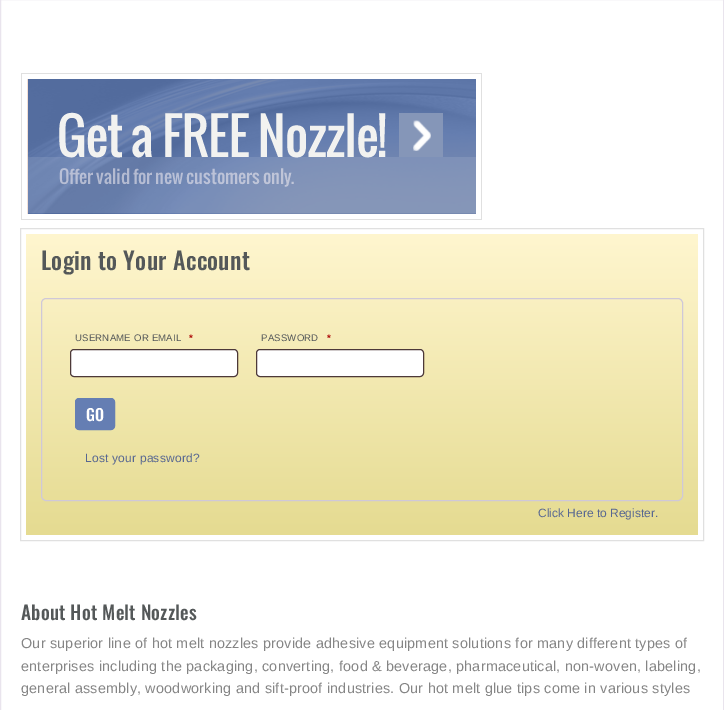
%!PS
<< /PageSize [724 710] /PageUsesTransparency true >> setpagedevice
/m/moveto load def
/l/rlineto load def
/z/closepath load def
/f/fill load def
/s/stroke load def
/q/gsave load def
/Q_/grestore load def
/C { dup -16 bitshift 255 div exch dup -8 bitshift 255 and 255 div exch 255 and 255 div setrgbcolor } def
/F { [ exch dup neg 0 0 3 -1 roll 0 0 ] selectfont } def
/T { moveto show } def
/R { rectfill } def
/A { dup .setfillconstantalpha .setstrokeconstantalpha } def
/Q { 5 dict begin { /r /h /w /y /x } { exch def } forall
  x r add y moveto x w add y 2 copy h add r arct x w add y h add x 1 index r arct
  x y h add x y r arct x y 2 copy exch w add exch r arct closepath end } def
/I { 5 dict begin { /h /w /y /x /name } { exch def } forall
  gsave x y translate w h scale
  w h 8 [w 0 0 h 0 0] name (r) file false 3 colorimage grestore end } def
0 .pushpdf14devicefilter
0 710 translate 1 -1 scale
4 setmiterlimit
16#FFFFFF C
0 0 724 710 R
16#E9E4ED C
.5 -.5 723 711 rectstroke
(1.rgb) 21 73 461 147 I
16#E0E0E0 C
20.5 228.5 683 312 rectstroke
q 26 234 m 672 0 l 0 301 l -672 0 l z clip newpath
<< /ShadingType 2 /ColorSpace /DeviceRGB /Coords [362 234 362 535] /Extend [true true] /Function << /FunctionType 2 /Domain [0 1] /C0 [1 .965 .812] /C1 [.898 .859 .569] /N 1 >> >> shfill Q_
/Oswald-Medium 24 F
16#545859 C
41 270 m .25 0 (Login to Your Account) ashow
16#CFC8D8 C
41.5 298.5 641 202 4.5 Q s
/LiberationSans-Regular 9.6 F
16#545859 C
75 341 m .2 0 (USERNAME OR EMAIL) ashow
/LiberationSans-Bold 9.6 F
16#AA0000 C
189 341 m .2 0 (*) ashow
16#FFFFFF C
70 349 168 28 4 Q f
0.8 A
16#200707 C
70.5 349.5 167 27 3.5 Q s
/LiberationSans-Regular 9.6 F
1 A
16#545859 C
261 341 m .2 0 (PASSWORD) ashow
/LiberationSans-Bold 9.6 F
16#AA0000 C
327 341 m .2 0 (*) ashow
16#FFFFFF C
256 349 168 28 4 Q f
0.8 A
16#200707 C
256.5 349.5 167 27 3.5 Q s
1 A
16#657EB3 C
75.5 398.5 39 31 3.5 Q q f Q_
s
/Oswald-Medium 16 F
16#FFFFFF C
(GO) 86 421 T
/LiberationSans-Regular 12 F
16#586791 C
85 462 m .2 0 (Lost your password?) ashow
(Click Here to Register.) 538 517 T
/Oswald-Medium 19.25 F
16#545859 C
21 620 m .2 0 (About Hot Melt Nozzles) ashow
/LiberationSans-Regular 14.4 F
16#858585 C
21 648 m .2 0 (Our superior line of hot melt nozzles provide adhesive equipment solutions for many different types of) ashow
21 671 m .2 0 (enterprises including the packaging, converting, food & beverage, pharmaceutical, non-woven, labeling,) ashow
21 693 m .2 0 (general assembly, woodworking and sift-proof industries. Our hot melt glue tips come in various styles) ashow
.poppdf14devicefilter showpage
